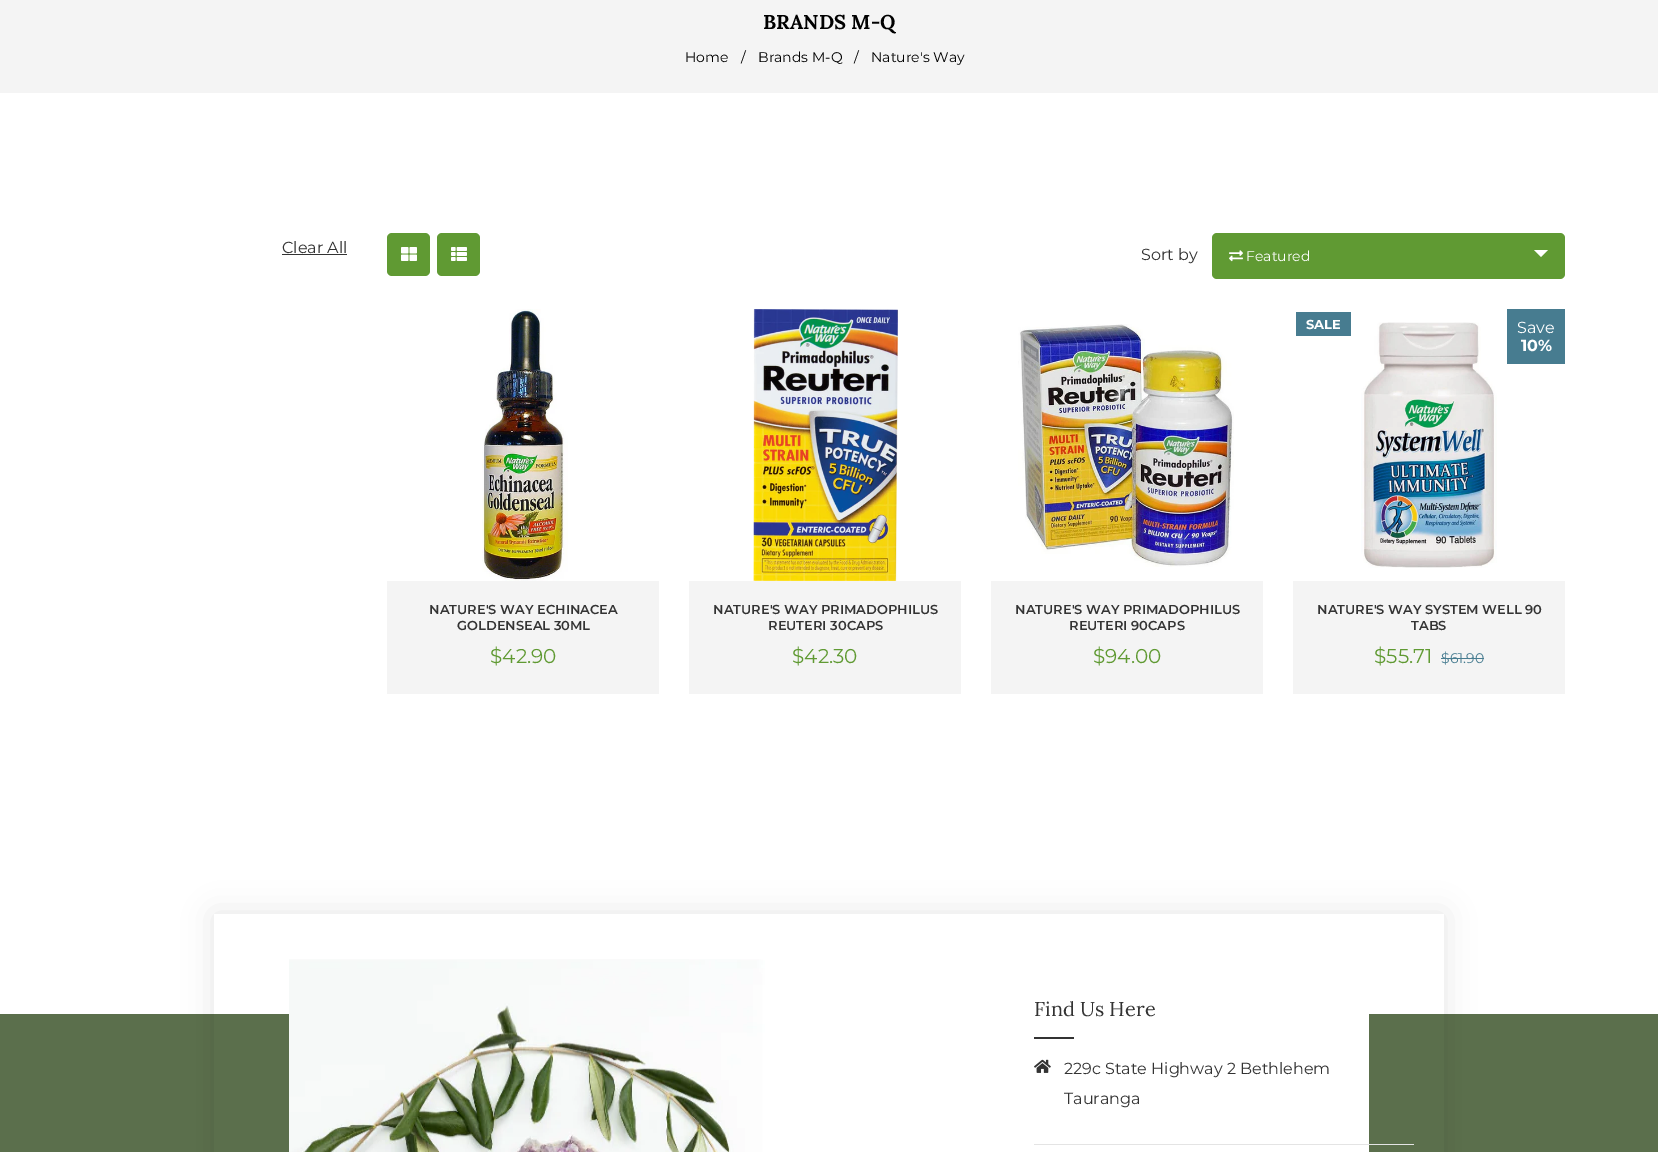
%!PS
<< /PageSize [1658 1152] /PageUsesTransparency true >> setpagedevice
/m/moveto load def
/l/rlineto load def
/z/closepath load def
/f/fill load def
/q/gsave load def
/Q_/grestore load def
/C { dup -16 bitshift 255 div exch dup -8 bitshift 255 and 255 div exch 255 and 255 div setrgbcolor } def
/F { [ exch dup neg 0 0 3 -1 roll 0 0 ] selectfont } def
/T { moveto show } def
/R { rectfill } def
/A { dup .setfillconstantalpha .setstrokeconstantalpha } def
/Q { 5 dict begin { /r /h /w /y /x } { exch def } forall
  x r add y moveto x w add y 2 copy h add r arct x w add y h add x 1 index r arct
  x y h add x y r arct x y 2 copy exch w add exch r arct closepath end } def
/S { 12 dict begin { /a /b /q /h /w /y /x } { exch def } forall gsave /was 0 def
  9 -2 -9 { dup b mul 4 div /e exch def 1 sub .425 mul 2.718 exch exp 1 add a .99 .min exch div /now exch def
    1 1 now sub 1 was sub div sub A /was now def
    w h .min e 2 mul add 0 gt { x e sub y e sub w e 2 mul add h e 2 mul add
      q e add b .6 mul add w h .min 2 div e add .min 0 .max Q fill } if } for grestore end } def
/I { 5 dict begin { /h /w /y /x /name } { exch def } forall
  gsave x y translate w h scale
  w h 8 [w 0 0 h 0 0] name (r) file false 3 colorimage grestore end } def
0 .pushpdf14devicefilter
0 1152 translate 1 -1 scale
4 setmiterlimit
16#FFFFFF C
0 0 1658 1152 R
16#F4F4F4 C
0 0 1658 93 R
/Lora-Bold 20 F
16#000000 C
(BRANDS M-Q) 763 29 T
/Montserrat-Regular 14 F
(Home) 685 62 T
(/) 741 62 T
(Brands M-Q) 758 62 T
(/) 854 62 T
(Nature's Way) 871 62 T
/Montserrat-Regular 16 F
16#333333 C
(Clear All) 282 253 T
282 254 65 1 R
16#609A33 C
387 233 43 43 5 Q f
(1.rgb) 401 247 16 14 I
437 233 43 43 5 Q f
(2.rgb) 451 247 16 14 I
16#333333 C
(Sort by) 1141 260 T
16#609A33 C
1212 233 353 46 5 Q f
(3.rgb) 1229 250 14 12 I
/Montserrat-Regular 14 F
16#FFFFFF C
(Featured) 1246 261 T
1534 250 m 14 0 l -7 7 l z f
(4.rgb) 482 309 86 272 I
16#F4F4F4 C
387 581 272 113 R
/Montserrat-SemiBold 13 F
16#333333 C
(NATURE'S WAY ECHINACEA) 429 614 T
(GOLDENSEAL 30ML) 457 630 T
/Montserrat-Regular 20 F
16#609A33 C
($42.90) 490 663 T
(5.rgb) 753 309 145 272 I
16#F4F4F4 C
689 581 272 113 R
/Montserrat-SemiBold 13 F
16#333333 C
(NATURE'S WAY PRIMADOPHILUS) 713 614 T
(REUTERI 30CAPS) 768 630 T
/Montserrat-Regular 20 F
16#609A33 C
($42.30) 792 663 T
(6.rgb) 1018 324 216 243 I
16#F4F4F4 C
991 581 272 113 R
/Montserrat-SemiBold 13 F
16#333333 C
(NATURE'S WAY PRIMADOPHILUS) 1015 614 T
(REUTERI 90CAPS) 1069 630 T
/Montserrat-Regular 20 F
16#609A33 C
($94.00) 1093 663 T
16#477C90 C
1296 312 55 24 R
/Montserrat-Bold 13 F
16#FFFFFF C
(SALE) 1306 329 T
(7.rgb) 1361 322 136 246 I
16#477C90 C
1507 309 58 55 R
/Montserrat-Regular 16 F
16#FFFFFF C
(Save) 1517 333 T
/Montserrat-Bold 16 F
(10%) 1521 351 T
16#F4F4F4 C
1293 581 272 113 R
/Montserrat-SemiBold 13 F
16#333333 C
(NATURE'S WAY SYSTEM WELL 90) 1317 614 T
(TABS) 1411 630 T
/Montserrat-Regular 20 F
16#609A33 C
($55.71) 1374 663 T
/Montserrat-Regular 14 F
16#477C90 C
($61.90) 1441 663 T
1441 658 43 1 R
16#5B6F4C C
0 1014 1658 138 R
q
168 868 m 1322 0 l 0 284 l -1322 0 l z 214 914 m 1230 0 l 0 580 l -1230 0 l z eoclip newpath
16#000000 C
214 914 1230 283 0 15 .1 S
Q_
(8.rgb) 289 959 1080 193 I
/Lora-Regular 20 F
16#333333 C
(Find Us Here) 1034 1016 T
1034 1037 40 2 R
16#E4E4E4 C
1034 1144 380 1 R
(9.rgb) 1034 1059 17 14 I
/Montserrat-Regular 16 F
16#333333 C
(229c State Highway 2 Bethlehem) 1064 1074 T
(Tauranga) 1064 1104 T
.poppdf14devicefilter showpage
